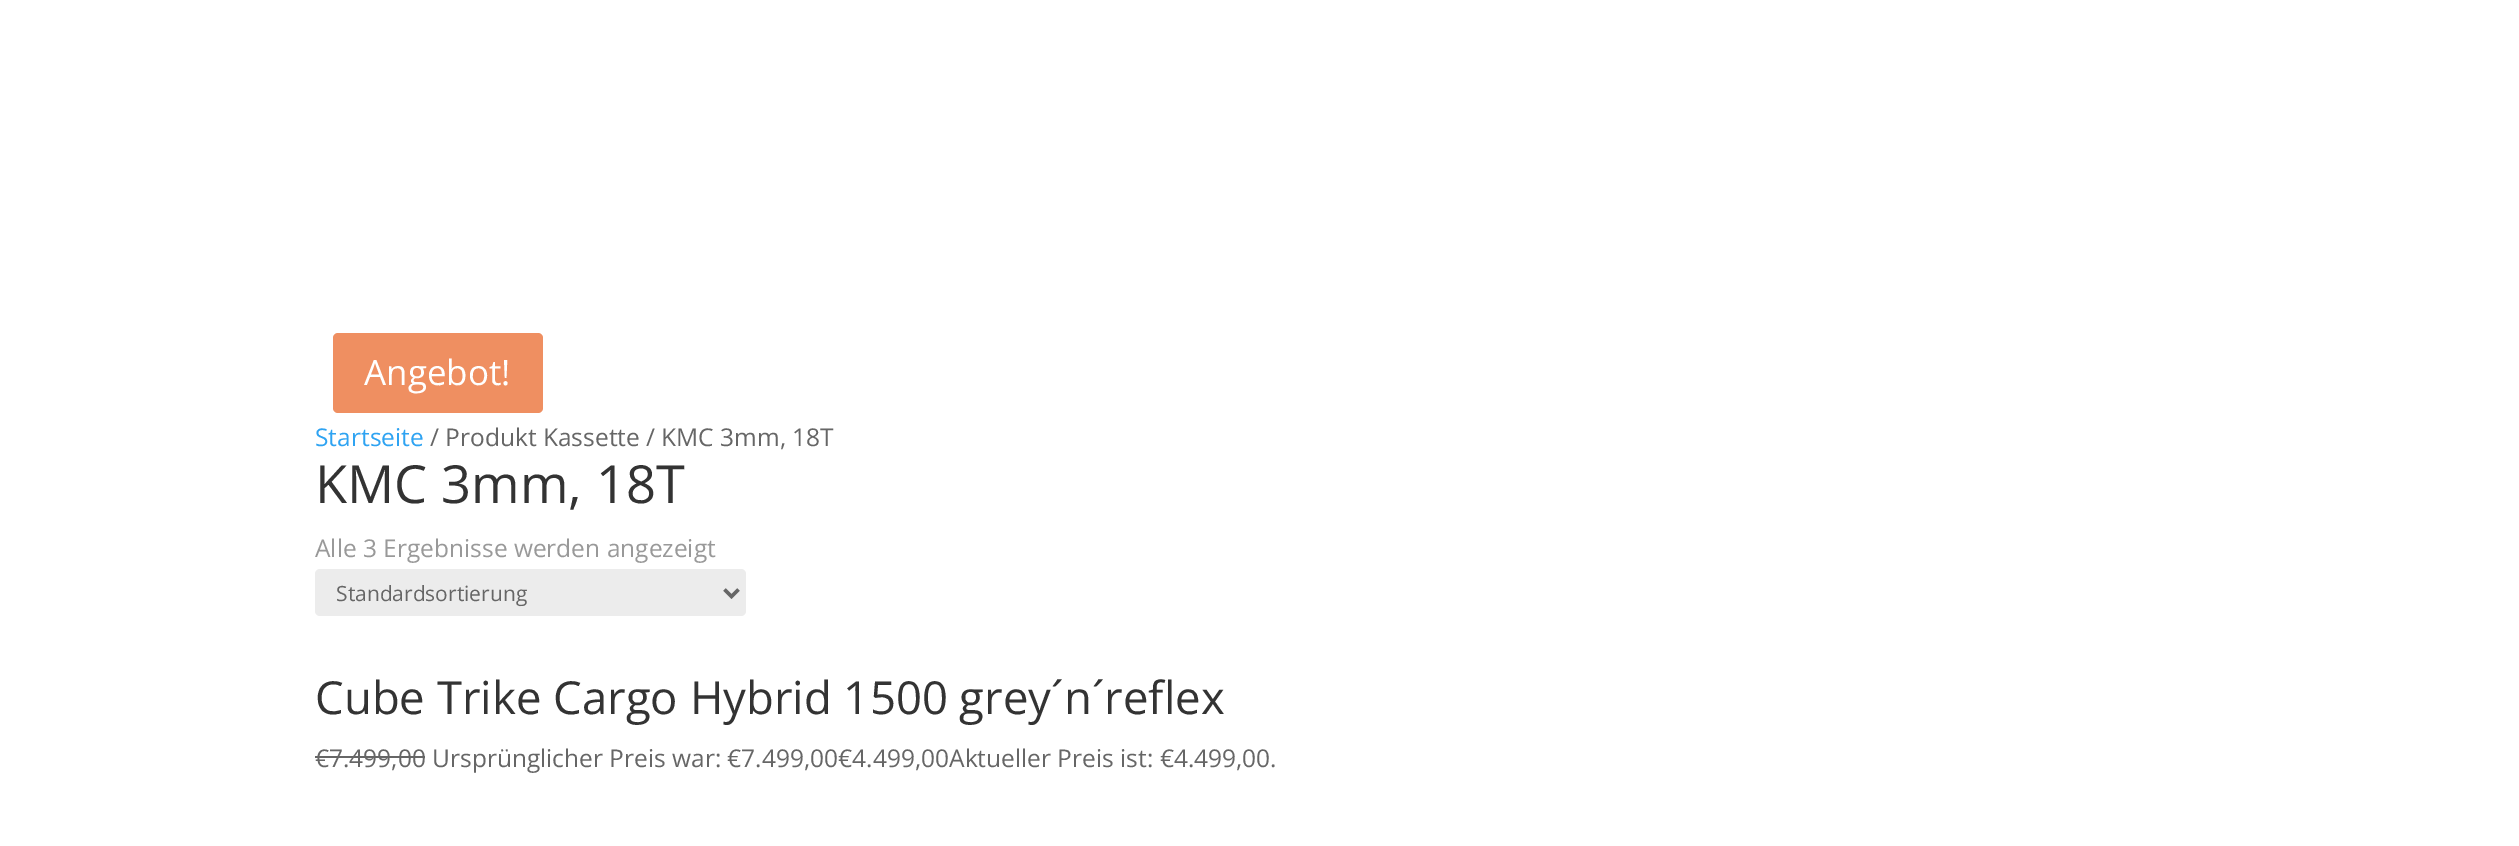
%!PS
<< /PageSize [2519 846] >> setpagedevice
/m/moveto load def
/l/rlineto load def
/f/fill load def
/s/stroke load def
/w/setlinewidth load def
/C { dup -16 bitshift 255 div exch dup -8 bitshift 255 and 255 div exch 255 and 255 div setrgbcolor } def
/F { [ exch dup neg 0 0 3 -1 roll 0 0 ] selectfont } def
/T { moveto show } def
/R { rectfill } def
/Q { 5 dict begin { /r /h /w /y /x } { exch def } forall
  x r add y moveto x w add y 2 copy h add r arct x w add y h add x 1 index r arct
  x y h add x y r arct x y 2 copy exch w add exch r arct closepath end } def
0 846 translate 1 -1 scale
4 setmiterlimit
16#FFFFFF C
0 0 2519 846 R
16#EF8F61 C
333 333 210 80 5 Q f
/OpenSans-Regular 35 F
16#FFFFFF C
(Angebot!) 364 385 T
/OpenSans-Regular 45.5 F
16#333333 C
(Cube Trike Cargo Hybrid 1500 grey´n´reflex) 315 714 T
/OpenSans-Regular 24.5 F
16#666666 C
(€7.499,00 Ursprünglicher Preis war: €7.499,00€4.499,00Aktueller Preis ist: €4.499,00.) 315 767 T
315 756 110 2 R
16#2EA3F2 C
(Startseite) 315 446 T
16#666666 C
(/ Produkt Kassette / KMC 3mm, 18T) 430 446 T
/OpenSans-Regular 52.5 F
16#333333 C
(KMC 3mm, 18T) 315 503 T
/OpenSans-Regular 24.5 F
16#999999 C
(Alle 3 Ergebnisse werden angezeigt) 315 557 T
16#ECECEC C
315 569 431 47 5 Q f
16#666666 C
3.5 w
724.5 589.5 m 7 7 l 7 -7 l s
/OpenSans-Regular 21 F
(Standardsortierung) 336 601 T
showpage
